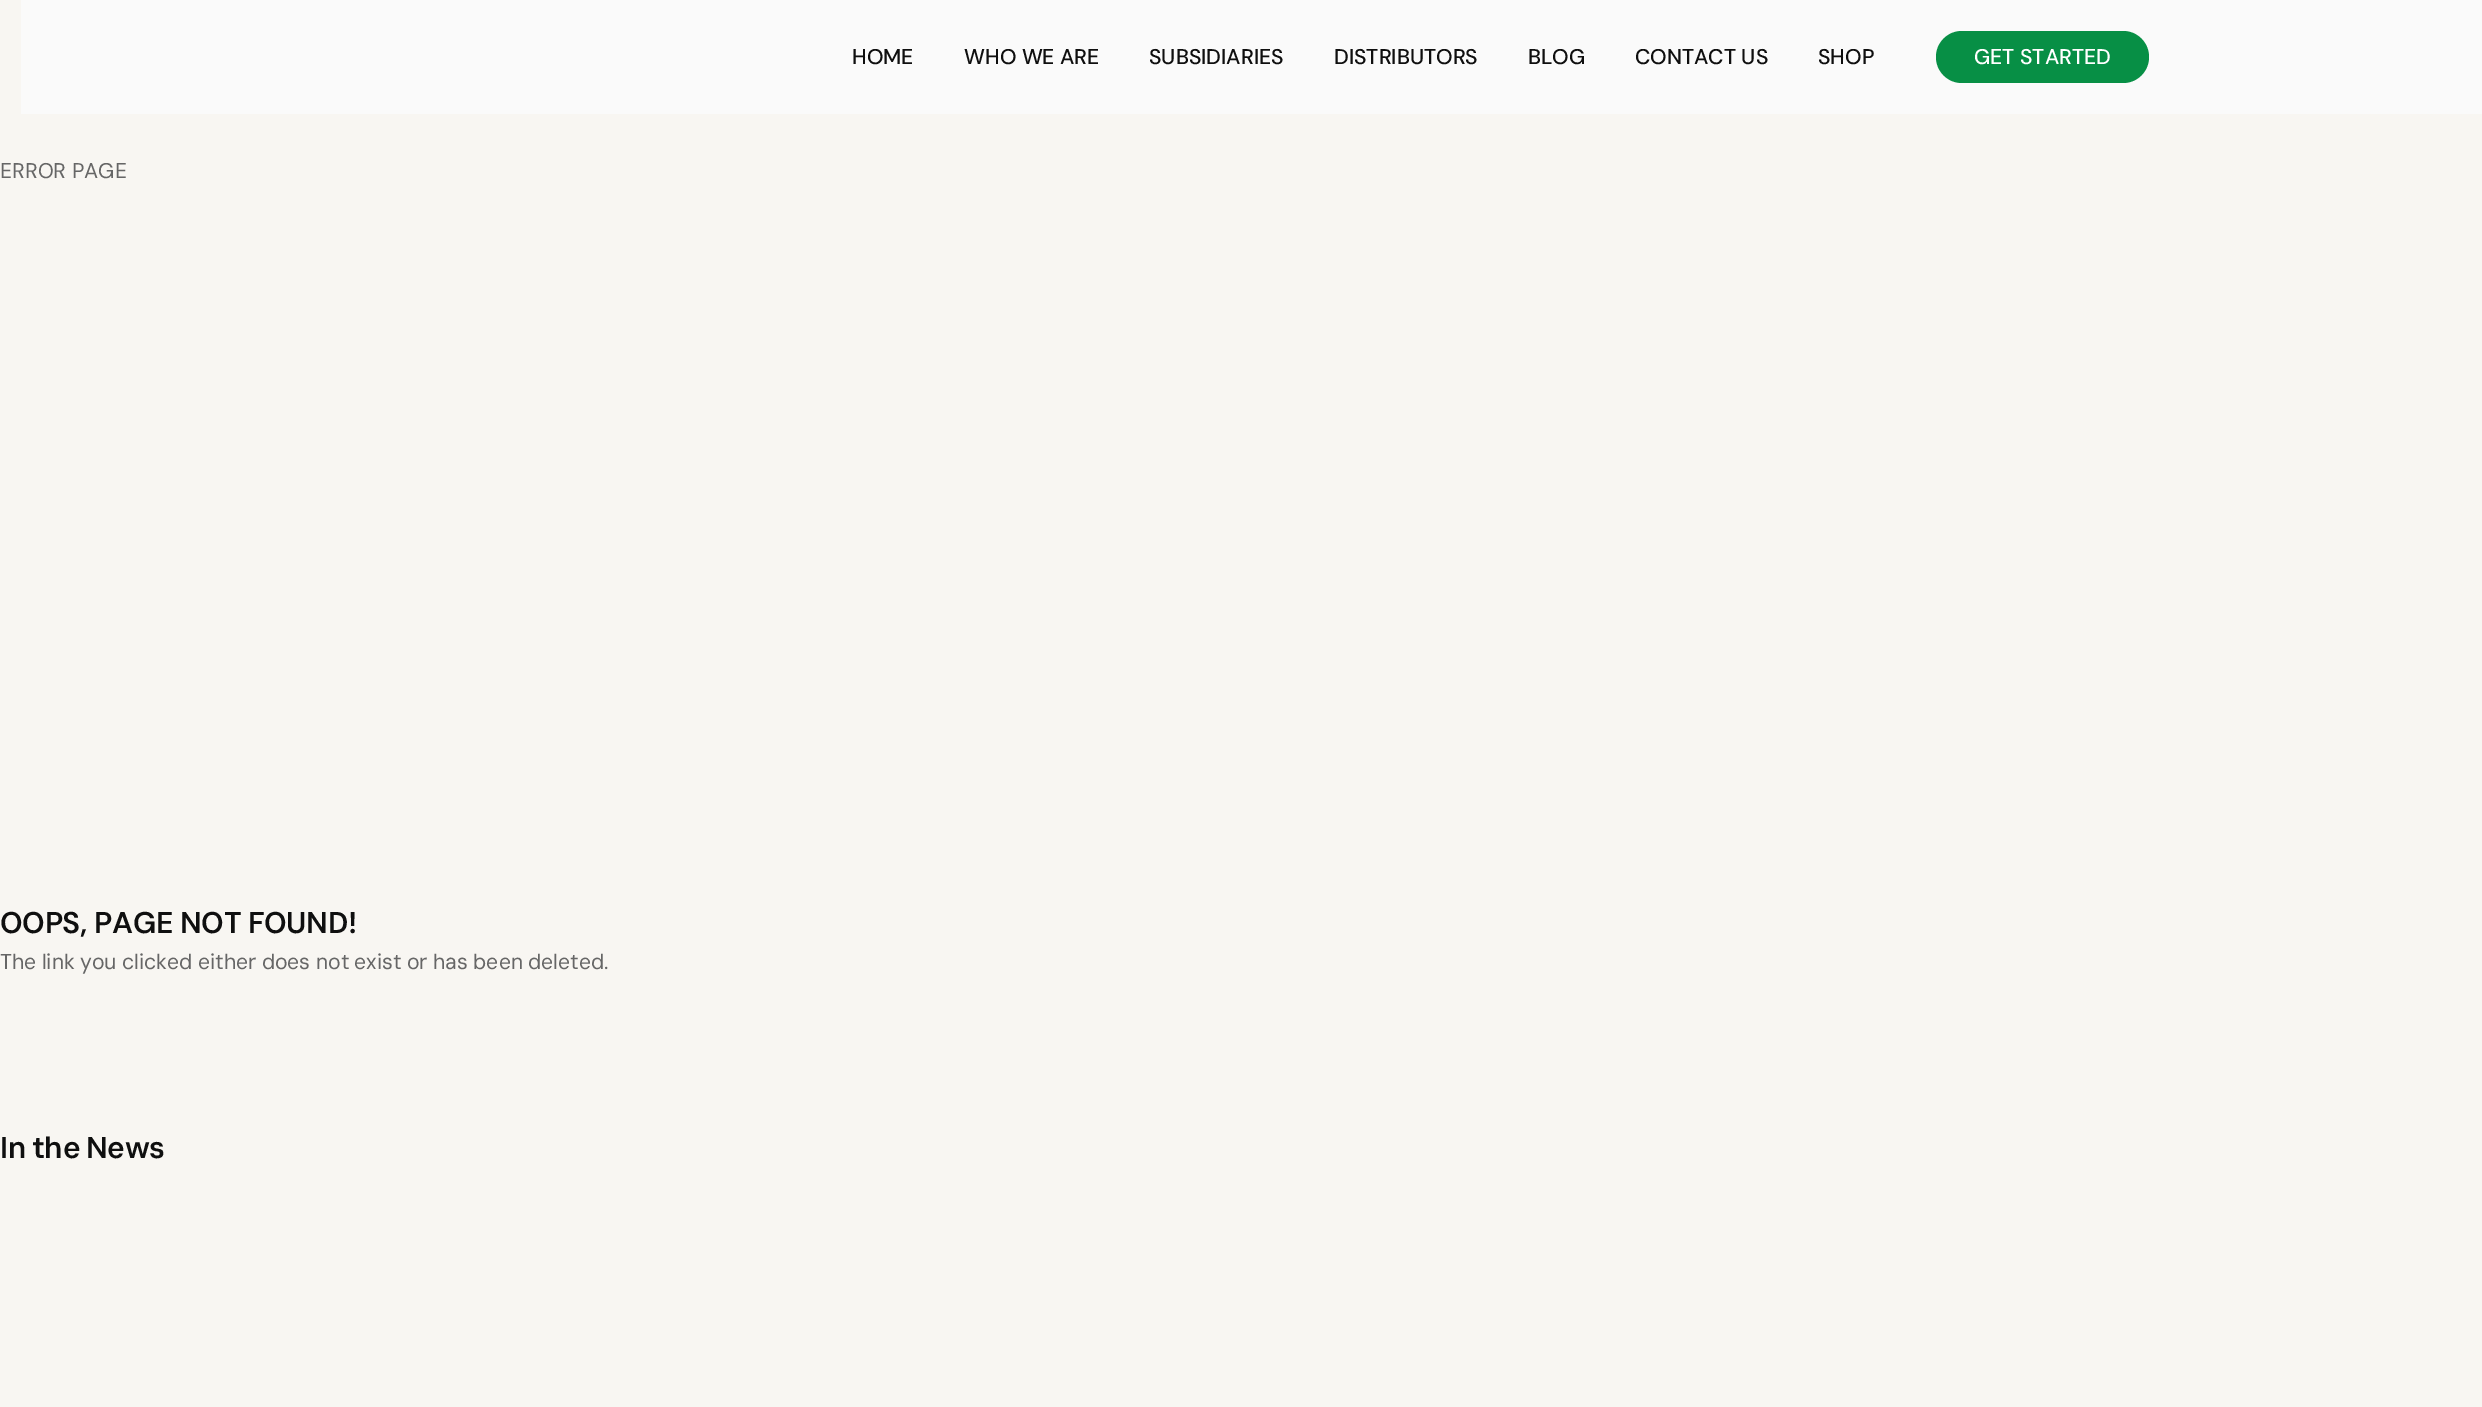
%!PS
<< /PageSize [2482 1407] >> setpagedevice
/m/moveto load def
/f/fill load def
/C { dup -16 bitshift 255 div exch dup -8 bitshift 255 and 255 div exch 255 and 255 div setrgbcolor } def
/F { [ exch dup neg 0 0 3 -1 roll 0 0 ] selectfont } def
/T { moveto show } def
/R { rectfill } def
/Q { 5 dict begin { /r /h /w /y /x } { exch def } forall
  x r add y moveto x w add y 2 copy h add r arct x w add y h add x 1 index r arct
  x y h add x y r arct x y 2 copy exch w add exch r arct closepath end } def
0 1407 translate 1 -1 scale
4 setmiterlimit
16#F8F6F2 C
0 0 2482 1407 R
16#FAFAFA C
21 0 2461 114 R
/DMSans-Medium 21.25 F
16#0F0F0F C
(HOME) 852 64 T
(WHO WE ARE) 964 64 T
(SUBSIDIARIES) 1149 64 T
(DISTRIBUTORS) 1334 64 T
(BLOG) 1528 64 T
(CONTACT US) 1635 64 T
(SHOP) 1818 64 T
16#078F45 C
1936 31 213 52 26 Q f
16#FFFFFF C
(GET STARTED) 1974 64 T
/DMSans-Regular 21.25 F
16#666666 C
(ERROR PAGE) 0 178 T
/DMSans-SemiBold 30 F
16#0F0F0F C
0 933 m -.4 0 (OOPS, PAGE NOT FOUND!) ashow
/DMSans-Regular 21.25 F
16#666666 C
0 969 m -.4 0 32 (The link you clicked either does not exist or has been deleted.) widthshow
/DMSans-SemiBold 30 F
16#0F0F0F C
0 1158 m -1 0 32 -.4 0 (In the News) awidthshow
showpage
